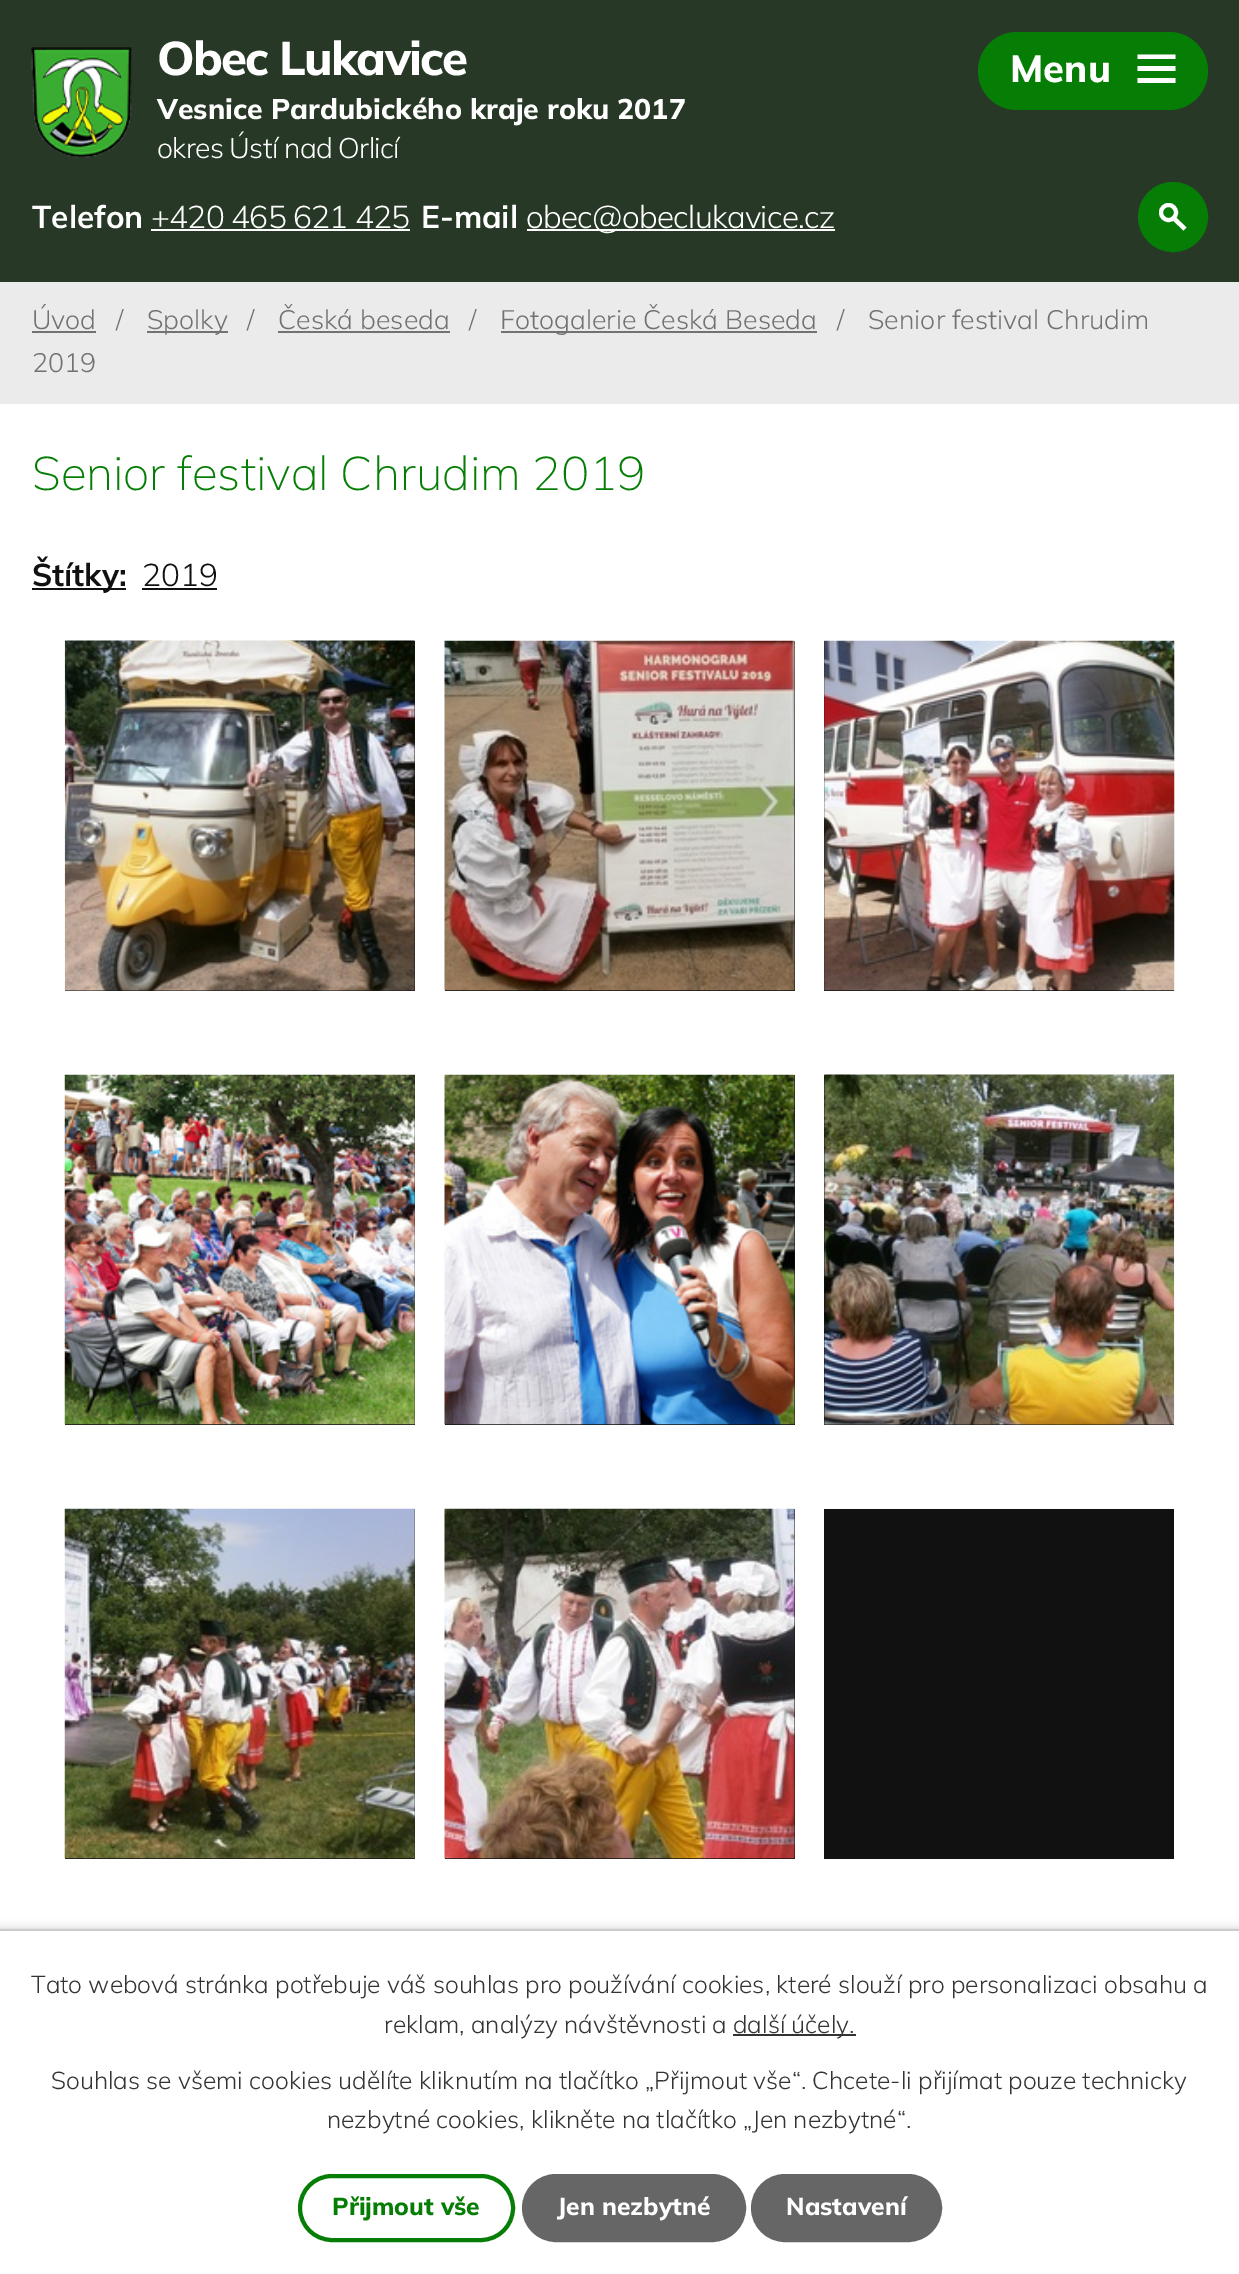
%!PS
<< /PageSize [1239 2274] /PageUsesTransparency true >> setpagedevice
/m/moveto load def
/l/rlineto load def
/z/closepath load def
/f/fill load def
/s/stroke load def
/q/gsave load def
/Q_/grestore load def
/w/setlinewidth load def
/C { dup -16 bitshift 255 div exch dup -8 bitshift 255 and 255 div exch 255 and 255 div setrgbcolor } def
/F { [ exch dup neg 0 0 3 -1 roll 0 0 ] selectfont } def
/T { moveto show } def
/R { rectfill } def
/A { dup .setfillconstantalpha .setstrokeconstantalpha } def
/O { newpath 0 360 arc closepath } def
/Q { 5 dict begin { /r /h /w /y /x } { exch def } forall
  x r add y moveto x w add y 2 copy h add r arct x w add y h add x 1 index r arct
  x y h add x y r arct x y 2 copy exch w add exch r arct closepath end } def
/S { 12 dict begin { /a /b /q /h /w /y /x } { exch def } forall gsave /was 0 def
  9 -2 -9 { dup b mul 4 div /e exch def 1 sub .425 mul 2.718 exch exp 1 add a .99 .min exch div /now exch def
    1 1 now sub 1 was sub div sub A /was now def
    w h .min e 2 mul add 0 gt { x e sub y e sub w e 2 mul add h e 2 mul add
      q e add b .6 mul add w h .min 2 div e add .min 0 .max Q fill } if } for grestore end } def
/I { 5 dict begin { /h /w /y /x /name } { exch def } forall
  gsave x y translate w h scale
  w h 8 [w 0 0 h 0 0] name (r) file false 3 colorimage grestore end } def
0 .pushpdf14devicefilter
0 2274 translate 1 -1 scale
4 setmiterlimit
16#FFFFFF C
0 0 1239 2274 R
16#273826 C
0 0 1239 282 R
(1.rgb) 31 47 101 111 I
/Mulish-ExtraBold 47.25 F
16#FFFFFF C
157 75 m -1.75 0 (Obec Lukavice) ashow
/Mulish-ExtraBold 28.4 F
(Vesnice Pardubického kraje roku 2017) 157 119 T
/Mulish-Light 28.4 F
157 158 m -.7 0 (okres Ústí nad Orlicí) ashow
/Mulish-Bold 31.5 F
(Telefon) 32 228 T
/Mulish-Light 31.5 F
151 228 m -.7 0 (+420 465 621 425) ashow
151 229 259 2 R
/Mulish-Bold 31.5 F
(E-mail) 421 228 T
527 229 308 2 R
/Mulish-Light 31.5 F
526 228 m -.7 0 (obec@obeclukavice.cz) ashow
16#067E06 C
1173 217 34 O q f Q_
2 w
s
16#FFFFFF C
4 w
1168.5 212.5 7.5 O s
1176 217.5 m 10.5 10 l -3 3 l -10.5 -10 l z f
16#067E06 C
978 32 230 78 39 Q f
/Mulish-ExtraBold 38 F
16#FFFFFF C
(Menu) 1010 82 T
1137.5 83 m 0 -5 l 38 0 l 0 5 l z 1137.5 54.5 m 38 0 l 0 4.5 l -38 0 l z 1137.5 71 m 0 -5 l 38 0 l 0 5 l z f
16#EBEBEB C
0 282 1239 122 R
/Mulish-Light 26.75 F
16#727272 C
(Úvod) 32 329 T
32 331 64 2 R
(/) 116 329 T
147 331 81 2 R
(Spolky) 147 329 T
(/) 247 329 T
(Česká beseda) 278 329 T
278 331 172 2 R
(/) 469 329 T
501 331 316 2 R
(Fotogalerie Česká Beseda) 500 329 T
(/) 837 329 T
(Senior festival Chrudim) 868 329 T
(2019) 32 372 T
/Mulish-ExtraLight 47.25 F
16#067E06 C
(Senior festival Chrudim 2019) 32 490 T
16#111111 C
32 588 94 2 R
/Mulish-Bold 31.5 F
(Štítky:) 32 586 T
/Mulish-Light 31.5 F
(2019) 142 586 T
142 588 75 2 R
65 641 350 350 R
(2.rgb) 64 640 351 351 I
445 641 350 350 R
(3.rgb) 444 640 351 351 I
824 641 350 350 R
(4.rgb) 824 640 351 351 I
65 1075 350 350 R
(5.rgb) 64 1074 351 351 I
445 1075 350 350 R
(6.rgb) 444 1074 351 351 I
824 1075 350 350 R
(7.rgb) 824 1074 351 351 I
65 1509 350 350 R
(8.rgb) 64 1508 351 351 I
445 1509 350 350 R
(9.rgb) 444 1508 351 351 I
824 1509 350 350 R
16#000000 C
0 1929 1239 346 0 4.5 .2 S
16#FFFFFF C
0 1931 1239 343 R
16#CCCCCC C
0 1929 1239 2 R
/Mulish-Light 24.5 F
16#333333 C
(Tato webová stránka potřebuje váš souhlas pro používání cookies, které slouží pro personalizaci obsahu a) 31 1993 T
(reklam, analýzy návštěvnosti a) 384 2033 T
733 2034 123 2 R
(další účely.) 733 2033 T
(Souhlas se všemi cookies udělíte kliknutím na tlačítko „Přijmout vše“. Chcete-li přijímat pouze technicky) 51 2089 T
(nezbytné cookies, klikněte na tlačítko „Jen nezbytné“.) 327 2128 T
16#067E06 C
300 2176 213 64 32 Q s
/Mulish-ExtraBold 24.5 F
(Přijmout vše) 332 2215 T
16#666666 C
524 2176 220 64 32 Q q f Q_
s
16#FFFFFF C
(Jen nezbytné) 557 2215 T
16#666666 C
753 2176 187 64 32 Q q f Q_
s
16#FFFFFF C
(Nastavení) 786 2215 T
.poppdf14devicefilter showpage
